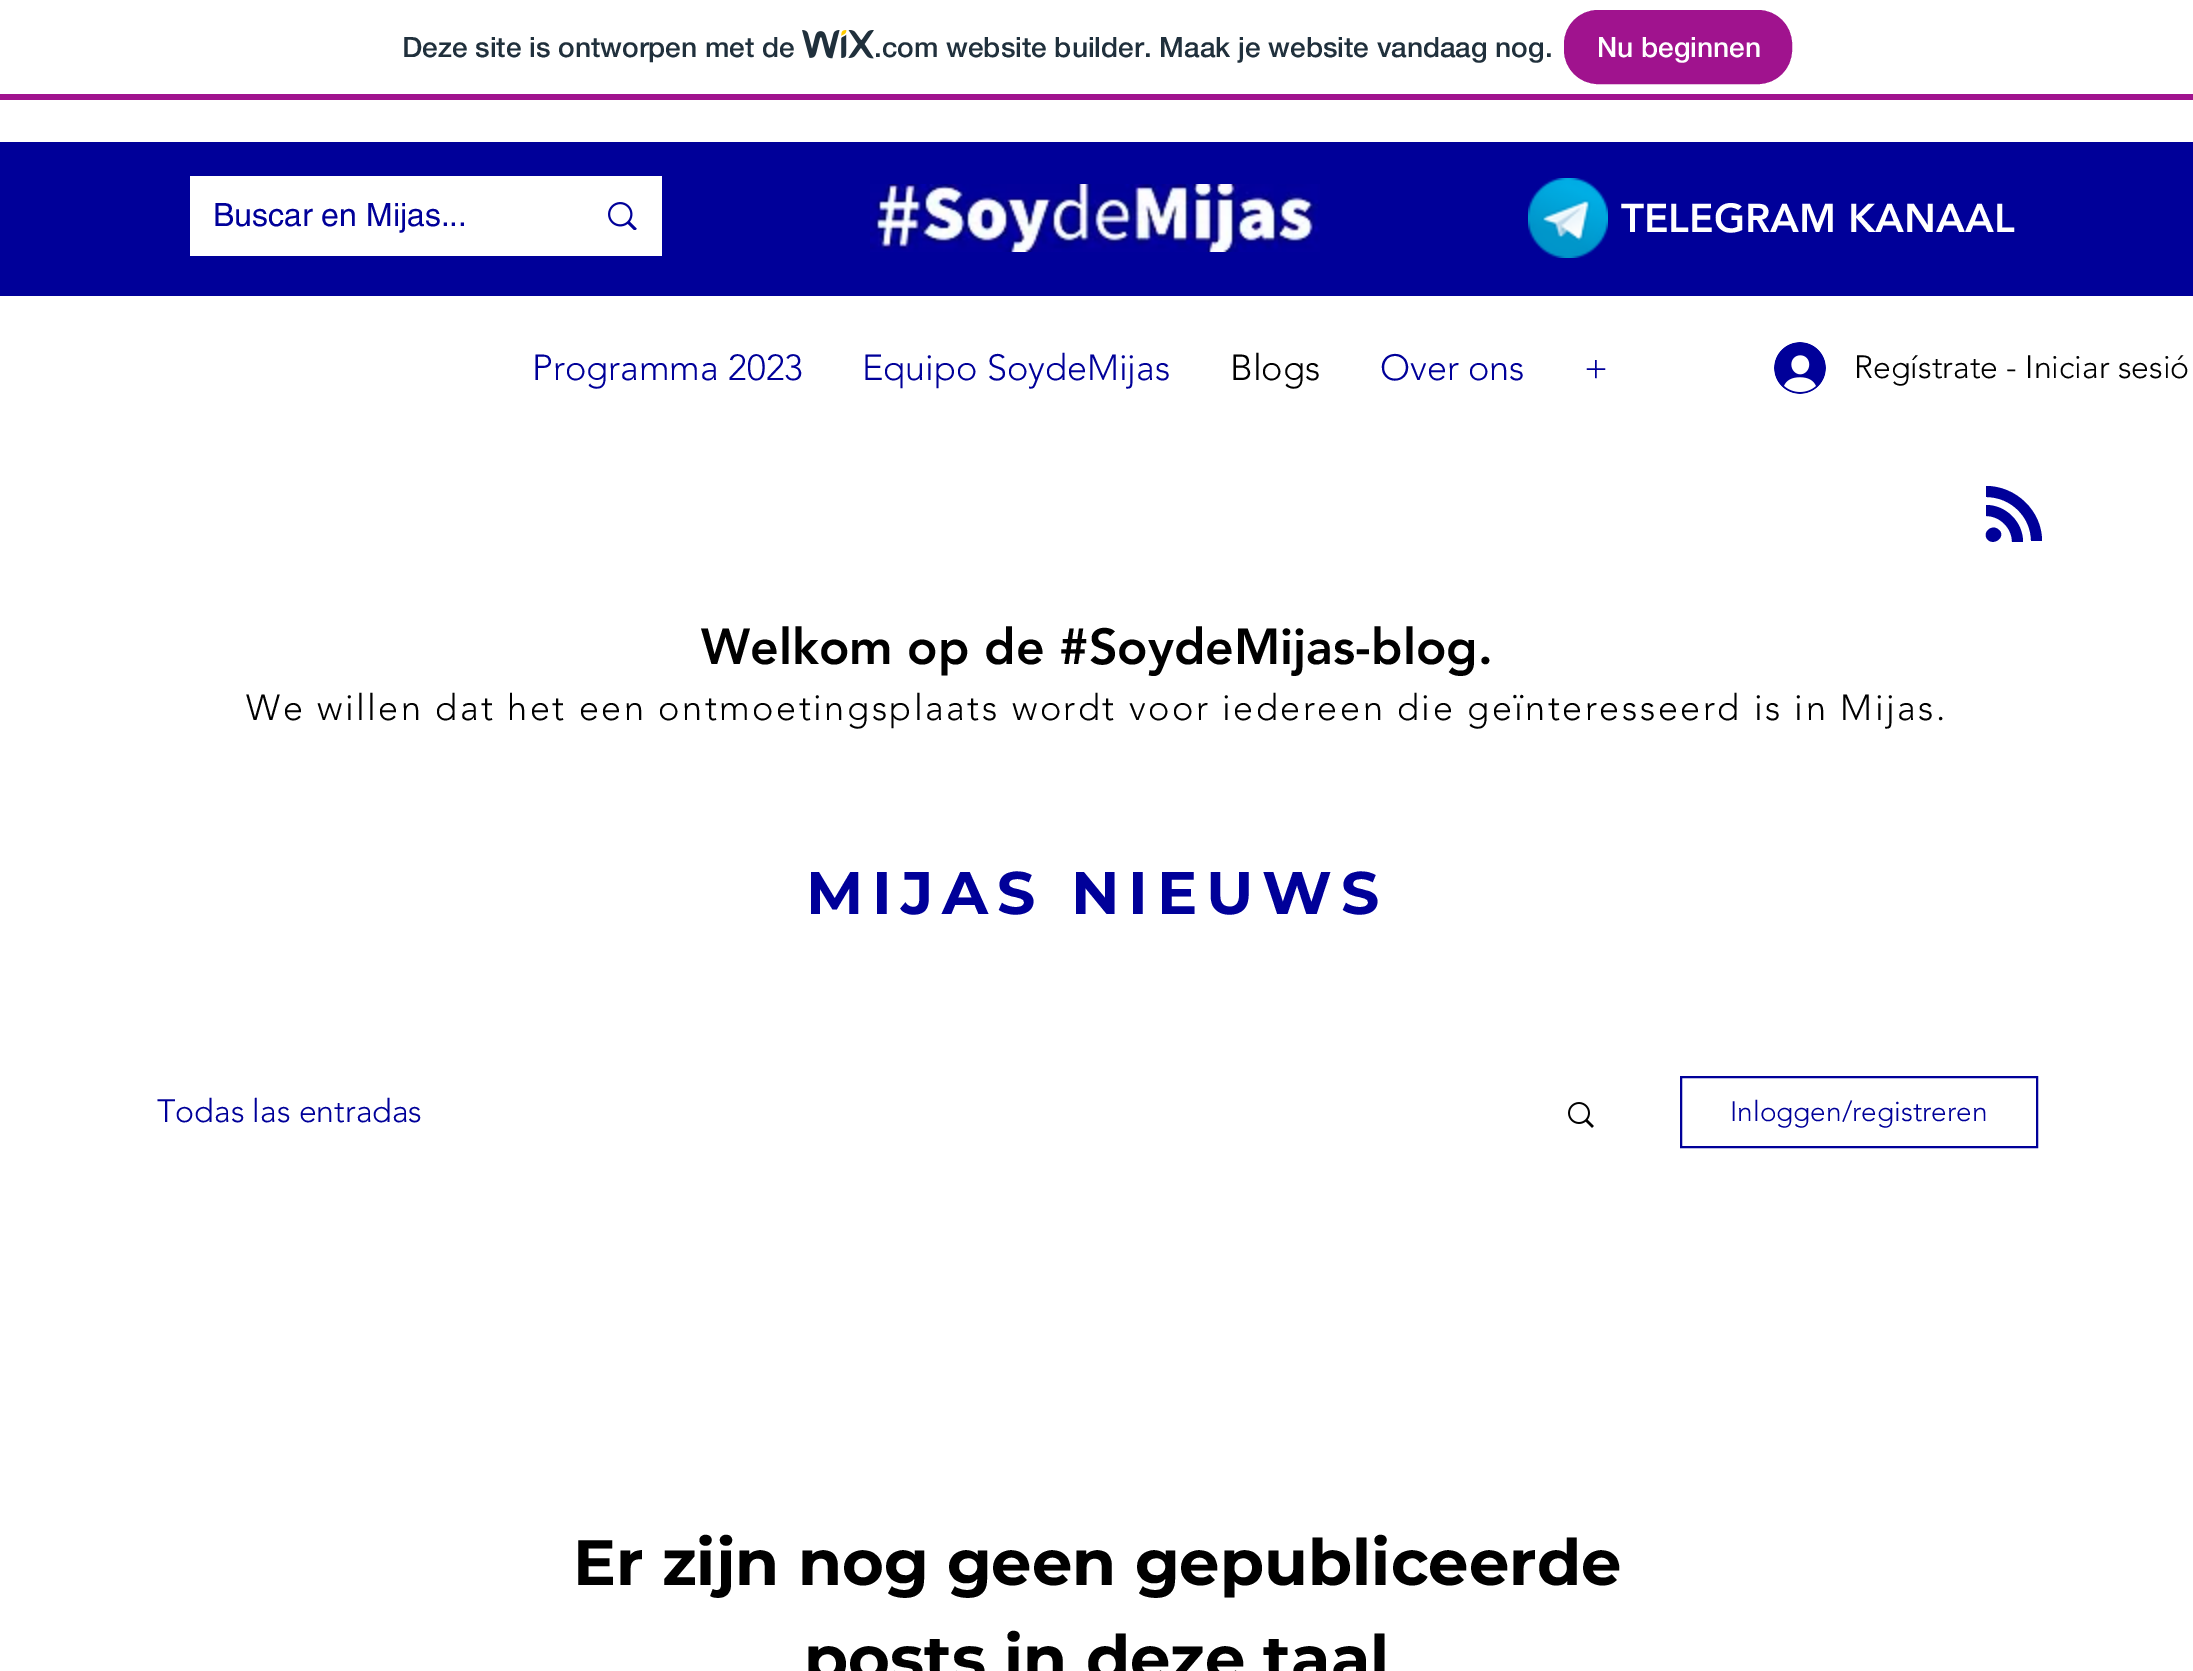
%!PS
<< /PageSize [2193 1671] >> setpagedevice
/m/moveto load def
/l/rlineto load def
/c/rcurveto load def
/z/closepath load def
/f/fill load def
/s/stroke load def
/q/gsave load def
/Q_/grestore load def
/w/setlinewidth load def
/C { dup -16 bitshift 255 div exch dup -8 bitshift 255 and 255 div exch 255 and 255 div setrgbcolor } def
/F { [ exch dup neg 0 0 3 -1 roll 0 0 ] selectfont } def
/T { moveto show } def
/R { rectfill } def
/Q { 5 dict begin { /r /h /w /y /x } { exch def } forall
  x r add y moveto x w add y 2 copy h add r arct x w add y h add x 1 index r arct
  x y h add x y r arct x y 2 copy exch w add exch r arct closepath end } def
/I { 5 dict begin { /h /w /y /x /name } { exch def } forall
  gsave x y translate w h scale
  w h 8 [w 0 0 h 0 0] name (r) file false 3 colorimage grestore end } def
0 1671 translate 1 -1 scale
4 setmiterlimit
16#FFFFFF C
0 0 2193 1671 R
16#A0138E C
0 94 2193 6 R
/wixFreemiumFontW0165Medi-Medium 28 F
16#20303C C
(Deze site is ontworpen met de) 402 57 T
(1.rgb) 802 30 72 29 I
(.com website builder. Maak je website vandaag nog.) 874 57 T
16#A0138E C
1565 11 226 72 33 Q q f Q_
2 w
s
16#FFFFFF C
(Nu beginnen) 1597 57 T
16#000099 C
0 142 2193 154 R
16#FFFFFF C
190 176 472 80 R
/helvetica-Regular 32 F
16#000099 C
(Buscar en Mijas...) 213 226 T
(2.rgb) 608 202 29 28 I
(3.rgb) 870 184 450 68 I
(4.rgb) 1528 178 80 80 I
/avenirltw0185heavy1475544-Black 40 F
16#FFFFFF C
(TELEGRAM KANAAL) 1621 232 T
/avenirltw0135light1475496-Light 36 F
16#000099 C
(Programma 2023) 532 380 T
(Equipo SoydeMijas) 862 380 T
16#000000 C
(Blogs) 1230 380 T
16#000099 C
(Over ons) 1380 380 T
(+) 1584 380 T
(5.rgb) 1774 342 52 52 I
/avenirltw0135light1475496-Light 32 F
16#000000 C
(Regístrate - Iniciar sesió) 1854 378 T
16#000099 C
1986 505 m 20 0 37 17 37 37 c -11 0 l 0 -14 -12 -26 -26 -26 c z 1986 486 m 30 0 56 25 56 55 c -11 0 l 0 -24 -20 -44 -45 -44 c z 1999 530 m 7 6 -4 16 -11 10 c -7 -7 4 -17 11 -10 c z eofill
/avenirltw0185heavy1475544-Black 50 F
16#000000 C
(Welkom op de #SoydeMijas-blog.) 701 664 T
/avenirltw0135light1475496-Light 36 F
246 720 m 2.52 0 (We willen dat het een ontmoetingsplaats wordt voor iedereen die geïnteresseerd is in Mijas.) ashow
/Montserrat-Bold 60 F
16#000099 C
806 914 m 9 0 (MIJAS NIEUWS) ashow
/avenirltw0135light1475496-Light 32 F
(Todas las entradas) 157 1122 T
(6.rgb) 1568 1102 26 26 I
1681 1077 356 70 rectstroke
/avenirltw0135light1475496-Light 28 F
(Inloggen/registreren) 1730 1121 T
/Montserrat-Bold 64 F
16#000000 C
(Er zijn nog geen gepubliceerde) 573 1585 T
(posts in deze taal) 804 1681 T
showpage
